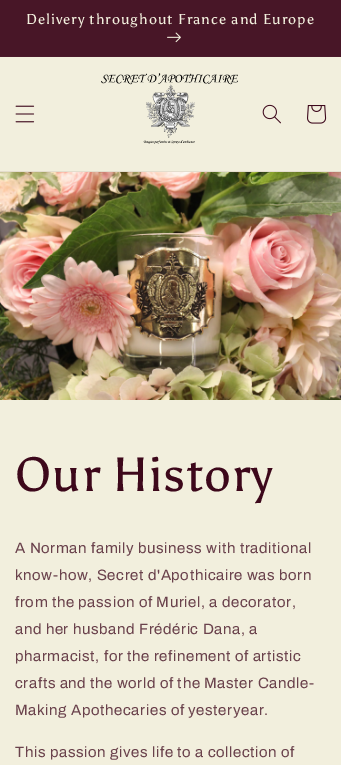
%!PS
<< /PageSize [341 765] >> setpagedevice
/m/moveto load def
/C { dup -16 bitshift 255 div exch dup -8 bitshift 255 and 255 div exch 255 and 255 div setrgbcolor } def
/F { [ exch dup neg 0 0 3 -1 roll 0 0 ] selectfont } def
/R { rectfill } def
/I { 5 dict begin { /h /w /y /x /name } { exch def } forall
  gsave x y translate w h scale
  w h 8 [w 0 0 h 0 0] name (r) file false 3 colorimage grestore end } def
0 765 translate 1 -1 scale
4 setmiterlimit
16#F2EFDD C
0 0 341 765 R
16#4B1A2B C
0 56 341 1 R
16#481627 C
0 0 341 56 R
/Asul-Regular 14.4 F
16#F2EFDD C
26 24 m 1 0 (Delivery throughout France and Europe) ashow
(1.rgb) 167 32 14 11 I
16#E4DDCD C
0 171 341 1 R
(2.rgb) 15 105 20 18 I
(3.rgb) 101 73 137 71 I
(4.rgb) 262 104 19 20 I
(5.rgb) 307 105 20 19 I
(6.rgb) 0 172 341 228 I
/Asul-Regular 48 F
16#3D081B C
15 491 m .75 0 (Our History) ashow
/Archivo-Regular 15 F
16#6A424C C
15 553 m .6 0 (A Norman family business with traditional) ashow
15 580 m .6 0 (know-how, Secret d'Apothicaire was born) ashow
15 607 m .6 0 (from the passion of Muriel, a decorator,) ashow
15 634 m .6 0 (and her husband Frédéric Dana, a) ashow
15 661 m .6 0 (pharmacist, for the refinement of artistic) ashow
15 688 m .6 0 (crafts and the world of the Master Candle-) ashow
15 715 m .6 0 (Making Apothecaries of yesteryear.) ashow
15 757 m .6 0 (This passion gives life to a collection of) ashow
showpage
